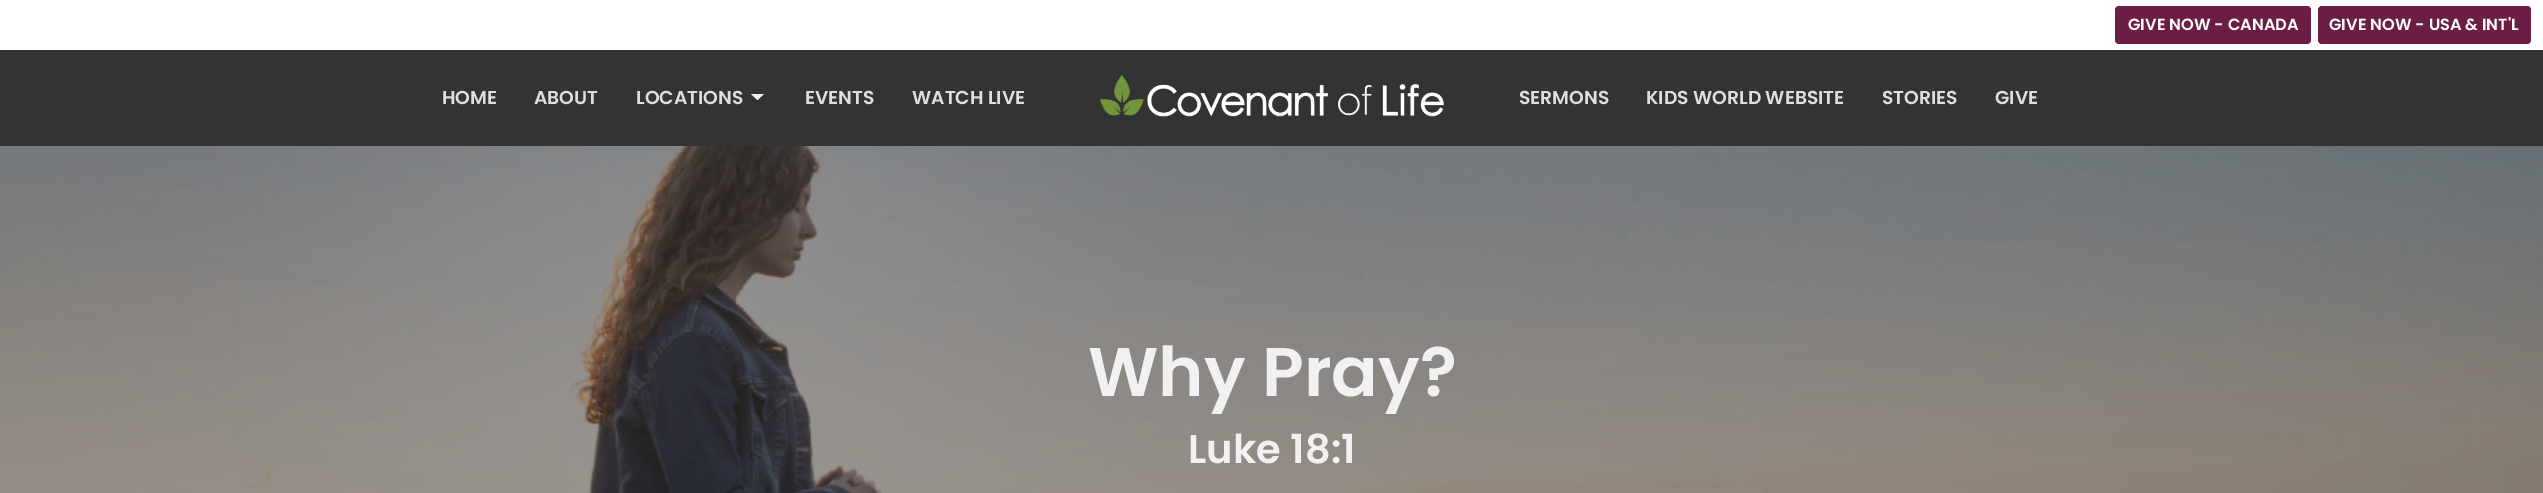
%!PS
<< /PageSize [2543 493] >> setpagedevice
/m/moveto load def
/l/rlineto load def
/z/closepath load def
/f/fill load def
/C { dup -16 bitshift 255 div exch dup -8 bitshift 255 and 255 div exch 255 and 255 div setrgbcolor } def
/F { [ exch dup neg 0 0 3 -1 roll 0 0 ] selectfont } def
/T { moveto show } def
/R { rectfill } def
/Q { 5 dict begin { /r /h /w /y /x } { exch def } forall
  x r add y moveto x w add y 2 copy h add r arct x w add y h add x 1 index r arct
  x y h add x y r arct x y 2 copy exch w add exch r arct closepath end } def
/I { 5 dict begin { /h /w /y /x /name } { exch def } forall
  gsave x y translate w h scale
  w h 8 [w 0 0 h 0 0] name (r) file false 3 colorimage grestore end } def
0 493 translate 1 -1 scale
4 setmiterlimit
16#FFFFFF C
0 0 2543 493 R
16#6C1D45 C
2115 6 196 38 4 Q f
/Poppins-SemiBold 16.25 F
16#FFFFFF C
(GIVE NOW - CANADA) 2128 30 T
16#6C1D45 C
2318 6 213 38 4 Q f
16#FFFFFF C
(GIVE NOW - USA & INT'L) 2329 30 T
16#333333 C
0 50 2543 96 R
/Poppins-SemiBold 18.75 F
16#DEDEDE C
(HOME) 442 104 T
(ABOUT) 534 104 T
(LOCATIONS) 636 104 T
16#F1F1F1 C
751 94 m 6.5 6 l 6.5 -6 l z f
16#DEDEDE C
(EVENTS) 805 104 T
(WATCH LIVE) 912 104 T
(1.rgb) 1100 75 344 42 I
(SERMONS) 1519 104 T
(KIDS WORLD WEBSITE) 1646 104 T
(STORIES) 1882 104 T
(GIVE) 1995 104 T
(2.rgb) 0 146 2543 347 I
/Poppins-SemiBold 68.75 F
16#F1F1F1 C
(Why Pray?) 1088 396 T
/Poppins-SemiBold 40 F
(Luke 18:1) 1188 463 T
showpage
